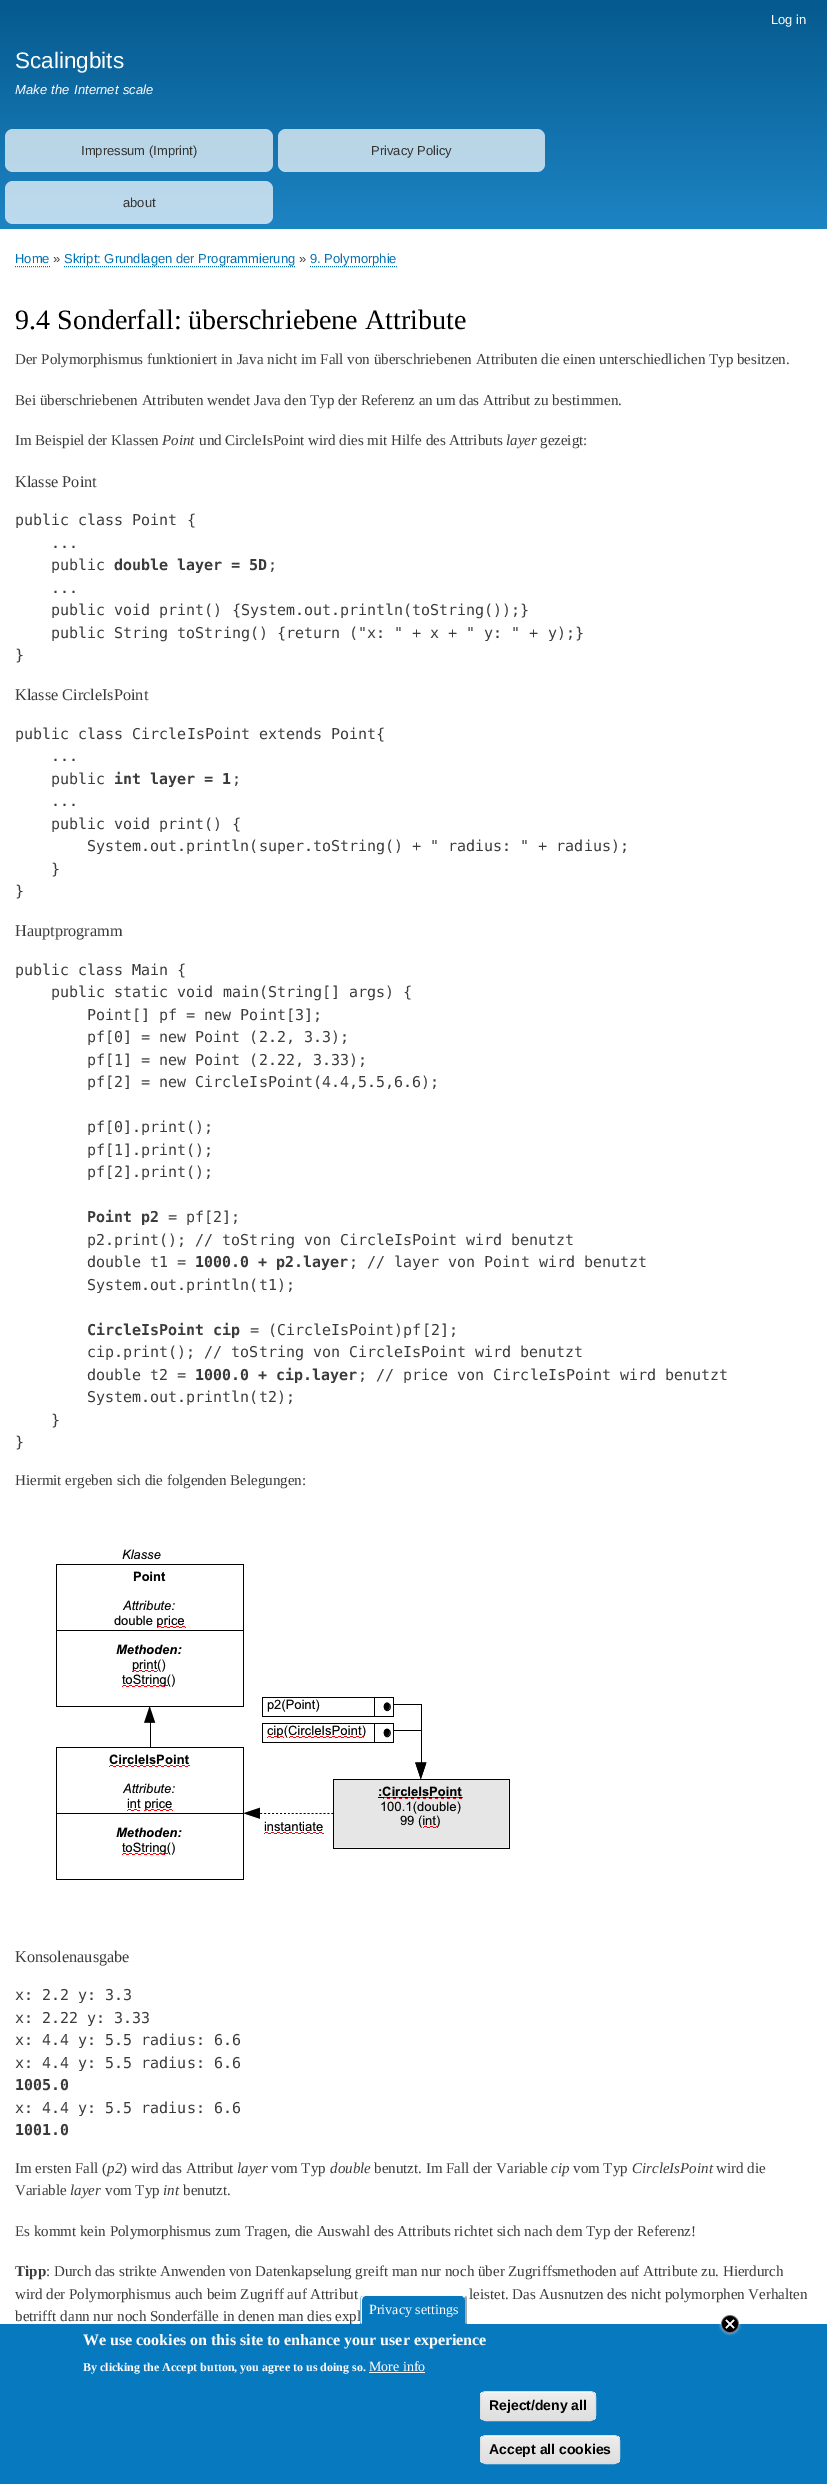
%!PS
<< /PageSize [827 2484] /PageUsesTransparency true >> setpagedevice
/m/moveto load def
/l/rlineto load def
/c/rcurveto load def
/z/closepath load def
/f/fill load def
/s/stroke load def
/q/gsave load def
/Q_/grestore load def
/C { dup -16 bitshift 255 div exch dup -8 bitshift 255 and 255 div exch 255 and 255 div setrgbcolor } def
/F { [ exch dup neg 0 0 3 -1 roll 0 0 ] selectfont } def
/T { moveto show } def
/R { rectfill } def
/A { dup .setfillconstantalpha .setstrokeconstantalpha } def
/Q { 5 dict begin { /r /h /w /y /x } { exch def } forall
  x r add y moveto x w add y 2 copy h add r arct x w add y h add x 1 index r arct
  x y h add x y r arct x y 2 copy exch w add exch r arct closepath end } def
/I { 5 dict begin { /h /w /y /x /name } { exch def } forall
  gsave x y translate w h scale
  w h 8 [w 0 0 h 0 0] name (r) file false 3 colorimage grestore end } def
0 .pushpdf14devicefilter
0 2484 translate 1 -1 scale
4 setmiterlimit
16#FFFFFF C
0 0 827 2484 R
q 0 0 m 827 0 l 0 229 l -827 0 l z clip newpath
<< /ShadingType 2 /ColorSpace /DeviceRGB /Coords [414 0 414 229] /Extend [true true] /Function << /FunctionType 2 /Domain [0 1] /C0 [.02 .353 .557] /C1 [.114 .518 .765] /N 1 >> >> shfill Q_
/LiberationSans-Regular 13 F
16#FFFEFF C
(Log in) 771 24 T
/LiberationSans-Regular 22.5 F
(Scalingbits) 15 68 T
/LiberationSans-Italic 13 F
15 94 m 1 0 32 (Make the Internet scale) widthshow
0.7 A
16#FFFFFF C
5 129 268 43 8 Q f
/LiberationSans-Regular 13 F
1 A
16#333333 C
(Impressum \(Imprint\)) 81 155 T
0.7 A
16#FFFFFF C
278 129 267 43 8 Q f
1 A
16#333333 C
(Privacy Policy) 371 155 T
0.7 A
16#FFFFFF C
5 181 268 43 8 Q f
1 A
16#333333 C
(about) 123 207 T
16#0071B3 C
(Home) 15 263 T
[1 1] 0 setdash
15 266.5 m 35 0 l s
16#3B3B3B C
(») 53 263 T
16#0071B3 C
(Skript: Grundlagen der Programmierung) 64 263 T
64 266.5 m 231 0 l s
16#3B3B3B C
(») 299 263 T
16#0071B3 C
(9. Polymorphie) 310 263 T
310 266.5 m 87 0 l s
/LiberationSerif-Regular 28 F
16#000000 C
(9.4 Sonderfall: überschriebene Attribute) 15 329 T
/LiberationSerif-Regular 15 F
16#3B3B3B C
(Der Polymorphismus funktioniert in Java nicht im Fall von überschriebenen Attributen die einen unterschiedlichen Typ besitzen.) 15 364 T
(Bei überschriebenen Attributen wendet Java den Typ der Referenz an um das Attribut zu bestimmen.) 15 405 T
(Im Beispiel der Klassen) 15 445 T
/LiberationSerif-Italic 15 F
(Point) 162 445 T
/LiberationSerif-Regular 15 F
(und CircleIsPoint wird dies mit Hilfe des Attributs) 199 445 T
/LiberationSerif-Italic 15 F
(layer) 506 445 T
/LiberationSerif-Regular 15 F
(gezeigt:) 540 445 T
/LiberationSerif-Regular 16.25 F
(Klasse Point) 15 487 T
/DejaVuSansMono-Regular 15 F
(public class Point {) 15 525 T
(...) 51 548 T
(public) 51 570 T
/DejaVuSansMono-Bold 15 F
(double layer = 5D) 114 570 T
/DejaVuSansMono-Regular 15 F
(;) 268 570 T
(...) 51 593 T
(public void print\(\) {System.out.println\(toString\(\)\);}) 51 615 T
(public String toString\(\) {return \("x: " + x + " y: " + y\);}) 51 638 T
(}) 15 660 T
/LiberationSerif-Regular 16.25 F
(Klasse CircleIsPoint) 15 700 T
/DejaVuSansMono-Regular 15 F
(public class CircleIsPoint extends Point{) 15 739 T
(...) 51 761 T
(public) 51 784 T
/DejaVuSansMono-Bold 15 F
(int layer = 1) 114 784 T
/DejaVuSansMono-Regular 15 F
(;) 232 784 T
(...) 51 806 T
(public void print\(\) {) 51 829 T
(System.out.println\(super.toString\(\) + " radius: " + radius\);) 87 851 T
(}) 51 874 T
(}) 15 896 T
/LiberationSerif-Regular 16.25 F
(Hauptprogramm) 15 936 T
/DejaVuSansMono-Regular 15 F
(public class Main {) 15 975 T
(public static void main\(String[] args\) {) 51 997 T
(Point[] pf = new Point[3];) 87 1020 T
(pf[0] = new Point \(2.2, 3.3\);) 87 1042 T
(pf[1] = new Point \(2.22, 3.33\);) 87 1065 T
(pf[2] = new CircleIsPoint\(4.4,5.5,6.6\);) 87 1087 T
(pf[0].print\(\);) 87 1132 T
(pf[1].print\(\);) 87 1155 T
(pf[2].print\(\);) 87 1177 T
/DejaVuSansMono-Bold 15 F
(Point p2) 87 1222 T
/DejaVuSansMono-Regular 15 F
(= pf[2];) 168 1222 T
(p2.print\(\); // toString von CircleIsPoint wird benutzt) 87 1245 T
(double t1 =) 87 1267 T
/DejaVuSansMono-Bold 15 F
(1000.0 + p2.layer) 195 1267 T
/DejaVuSansMono-Regular 15 F
(; // layer von Point wird benutzt) 349 1267 T
(System.out.println\(t1\);) 87 1290 T
/DejaVuSansMono-Bold 15 F
(CircleIsPoint cip) 87 1335 T
/DejaVuSansMono-Regular 15 F
(= \(CircleIsPoint\)pf[2];) 250 1335 T
(cip.print\(\); // toString von CircleIsPoint wird benutzt) 87 1357 T
(double t2 =) 87 1380 T
/DejaVuSansMono-Bold 15 F
(1000.0 + cip.layer) 195 1380 T
/DejaVuSansMono-Regular 15 F
(; // price von CircleIsPoint wird benutzt) 358 1380 T
(System.out.println\(t2\);) 87 1402 T
(}) 51 1425 T
(}) 15 1447 T
/LiberationSerif-Regular 15 F
(Hiermit ergeben sich die folgenden Belegungen:) 15 1485 T
(1.rgb) 56 1549 454 331 I
/LiberationSerif-Regular 16.25 F
(Konsolenausgabe) 15 1962 T
/DejaVuSansMono-Regular 15 F
(x: 2.2 y: 3.3) 15 2000 T
(x: 2.22 y: 3.33) 15 2023 T
(x: 4.4 y: 5.5 radius: 6.6) 15 2045 T
(x: 4.4 y: 5.5 radius: 6.6) 15 2068 T
/DejaVuSansMono-Bold 15 F
(1005.0) 15 2090 T
/DejaVuSansMono-Regular 15 F
(x: 4.4 y: 5.5 radius: 6.6) 15 2113 T
/DejaVuSansMono-Bold 15 F
(1001.0) 15 2135 T
/LiberationSerif-Regular 15 F
(Im ersten Fall \() 15 2173 T
/LiberationSerif-Italic 15 F
(p2) 107 2173 T
/LiberationSerif-Regular 15 F
(\) wird das Attribut) 122 2173 T
/LiberationSerif-Italic 15 F
(layer) 237 2173 T
/LiberationSerif-Regular 15 F
(vom Typ) 271 2173 T
/LiberationSerif-Italic 15 F
(double) 330 2173 T
/LiberationSerif-Regular 15 F
(benutzt. Im Fall der Variable) 374 2173 T
/LiberationSerif-Italic 15 F
(cip) 551 2173 T
/LiberationSerif-Regular 15 F
(vom Typ) 573 2173 T
/LiberationSerif-Italic 15 F
(CircleIsPoint) 632 2173 T
/LiberationSerif-Regular 15 F
(wird die) 716 2173 T
(Variable) 15 2195 T
/LiberationSerif-Italic 15 F
(layer) 70 2195 T
/LiberationSerif-Regular 15 F
(vom Typ) 105 2195 T
/LiberationSerif-Italic 15 F
(int) 163 2195 T
/LiberationSerif-Regular 15 F
(benutzt.) 183 2195 T
(Es kommt kein Polymorphismus zum Tragen, die Auswahl des Attributs richtet sich nach dem Typ der Referenz!) 15 2236 T
/LiberationSerif-Bold 15 F
(Tipp) 15 2276 T
/LiberationSerif-Regular 15 F
(: Durch das strikte Anwenden von Datenkapselung greift man nur noch über Zugriffsmethoden auf Attribute zu. Hierdurch) 46 2276 T
(wird der Polymorphismus auch beim Zugriff auf Attribut) 15 2299 T
(leistet. Das Ausnutzen des nicht polymorphen Verhalten) 469 2299 T
(betrifft dann nur noch Sonderfälle in denen man dies expl) 15 2321 T
16#0779BF C
0 2324 827 160 R
365 2295 m 97 0 l 3 0 5 2 5 5 c 0 24 l -107 0 l 0 -24 l 0 -3 2 -5 5 -5 c z f
16#FFFFFF C
365 2296 m -2 1 l -1 -1 l 1 -2 l 101 0 l 2 2 l -2 2 l 0 -1 -1 -2 -2 -2 c z f
16#AAAAAA C
465 2323.5 m 0 -23.5 l 0 -1 0 -1.5 -.5 -2.5 c 1.5 -1.5 l .5 1 1 2.5 1 4 c 0 23.5 l z f
16#FFFFFF C
360.5 2323.5 m 0 -25.5 l 1.5 -2 l 1 1 l -.5 1 -1 2 -1 3 c 0 23.5 l z f
/LiberationSerif-Regular 14 F
16#FFFEFF C
(Privacy settings) 369 2314 T
(2.rgb) 718 2315 24 21 I
/LiberationSerif-Bold 16 F
(We use cookies on this site to enhance your user experience) 83 2345 T
/LiberationSerif-Bold 12 F
(By clicking the Accept button, you agree to us doing so.) 83 2371 T
/LiberationSerif-Regular 14 F
(More info) 369 2371 T
16#FFFFFF C
369 2372 56 1 R
q
480 2391 116 30 6 Q clip newpath
q 480 2392 m 116 0 l 0 28 l -116 0 l z clip newpath
<< /ShadingType 2 /ColorSpace /DeviceRGB /Coords [538 2392 538 2420] /Extend [true true] /Function << /FunctionType 3 /Domain [0 1] /Functions [<< /FunctionType 2 /Domain [0 1] /C0 [.929 .929 .929] /C1 [.929 .929 .929] /N 1 >> << /FunctionType 2 /Domain [0 1] /C0 [.929 .929 .929] /C1 [.875 .875 .875] /N 1 >>] /Bounds [.05] /Encode [0 1 0 1] >> >> shfill Q_
Q_
486 2393 m 104 0 l 3 0 5 2 5 5 c 0 -10 -18 -6 -22 -6 c -70 0 l -4 0 -22 -4 -22 6 c 0 -3 2 -5 5 -5 c z f
16#DCDCDC C
[] 0 setdash
480.5 2391.5 115 29 5.5 Q s
/LiberationSans-Bold 14 F
16#000000 C
(Reject/deny all) 489 2410 T
q
480 2435 140 29 6 Q clip newpath
q 480 2436 m 140 0 l 0 27 l -140 0 l z clip newpath
<< /ShadingType 2 /ColorSpace /DeviceRGB /Coords [550 2436 550 2463] /Extend [true true] /Function << /FunctionType 3 /Domain [0 1] /Functions [<< /FunctionType 2 /Domain [0 1] /C0 [.929 .929 .929] /C1 [.929 .929 .929] /N 1 >> << /FunctionType 2 /Domain [0 1] /C0 [.929 .929 .929] /C1 [.875 .875 .875] /N 1 >>] /Bounds [.05] /Encode [0 1 0 1] >> >> shfill Q_
Q_
16#FFFFFF C
486 2437 m 128 0 l 3 0 5 2 5 5 c 0 -1 l 0 -3 -2 -5 -5 -5 c -128 0 l -3 0 -5 2 -5 5 c 0 1 l 0 -3 2 -5 5 -5 c z f
16#DCDCDC C
480.5 2435.5 139 28 5.5 Q s
16#000000 C
(Accept all cookies) 489 2454 T
.poppdf14devicefilter showpage
